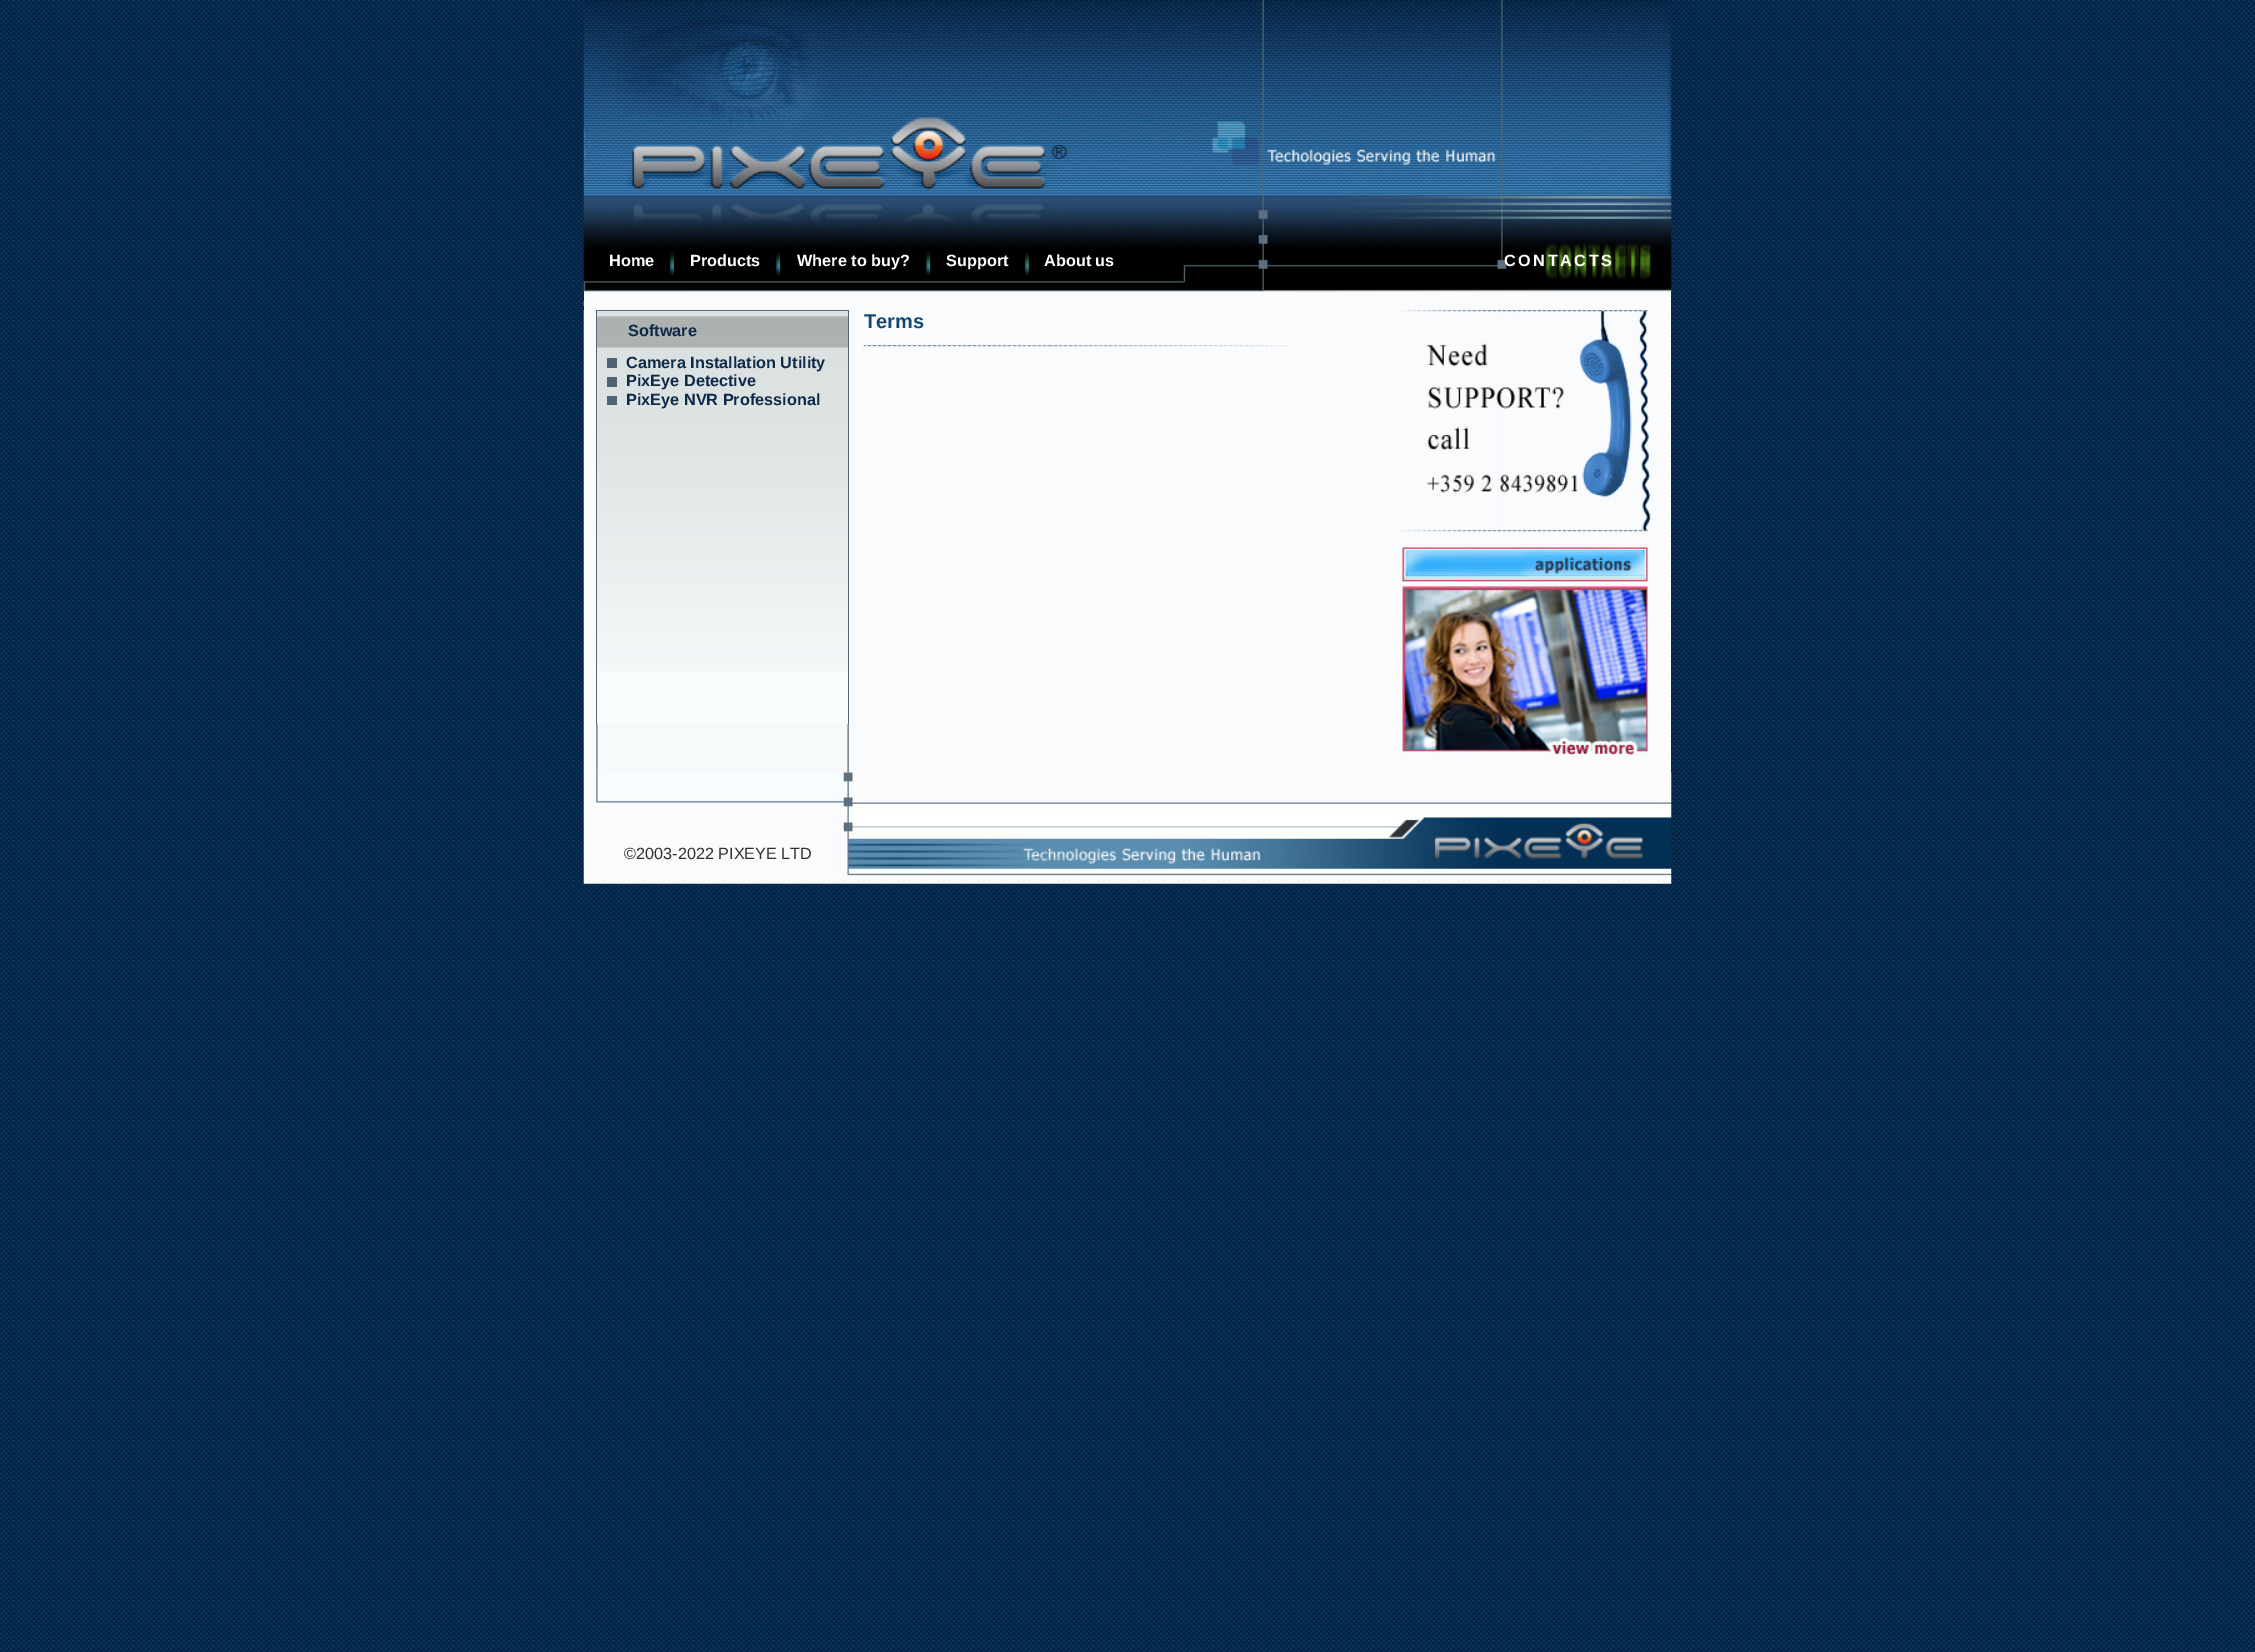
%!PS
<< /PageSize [2255 1652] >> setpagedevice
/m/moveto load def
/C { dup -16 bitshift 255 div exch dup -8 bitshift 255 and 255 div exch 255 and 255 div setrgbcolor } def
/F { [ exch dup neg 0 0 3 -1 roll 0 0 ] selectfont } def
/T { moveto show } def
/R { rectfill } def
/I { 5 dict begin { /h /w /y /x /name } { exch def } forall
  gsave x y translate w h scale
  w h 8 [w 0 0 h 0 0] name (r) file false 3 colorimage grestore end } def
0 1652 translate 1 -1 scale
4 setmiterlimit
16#FFFFFF C
0 0 2255 1652 R
(1.rgb) 0 0 2255 1652 I
16#FAFBFD C
584 291 1087 482 R
(2.rgb) 583 0 1089 292 I
/LiberationSans-Bold 16.25 F
16#FFFFFF C
(Home) 609 266 T
(3.rgb) 669 251 5 25 I
(Products) 690 266 T
(4.rgb) 776 251 5 25 I
(Where to buy?) 797 266 T
(4.rgb) 926 251 5 25 I
(Support) 946 266 T
(3.rgb) 1024 251 5 25 I
(About us) 1044 266 T
1504 266 m 2.5 0 (CONTACTS) ashow
(5.rgb) 583 301 1 6 I
(6.rgb) 583 310 266 463 I
/LiberationSans-Bold 20 F
16#134777 C
(Terms) 864 328 T
(7.rgb) 863 345 426 2 I
(8.rgb) 1401 310 250 222 I
(9.rgb) 1401 547 251 209 I
16#F7FCFD C
597 311 251 413 R
(10.rgb) 597 311 251 360 I
16#536675 C
596 310 253 1 R
848 310 1 414 R
596 310 1 414 R
/LiberationSans-Bold 16.25 F
16#0E2A48 C
(Software) 628 336 T
16#506372 C
607 358 10 10 R
16#0E2A48 C
(Camera Installation Utility) 626 368 T
16#506372 C
607 377 10 10 R
16#0E2A48 C
(PixEye Detective) 626 386 T
16#506372 C
607 396 10 9 R
16#0E2A48 C
(PixEye NVR Professional) 626 405 T
(11.rgb) 583 772 1089 112 I
/LiberationSans-Regular 16.25 F
16#303031 C
(©2003-2022 PIXEYE LTD) 624 859 T
showpage
